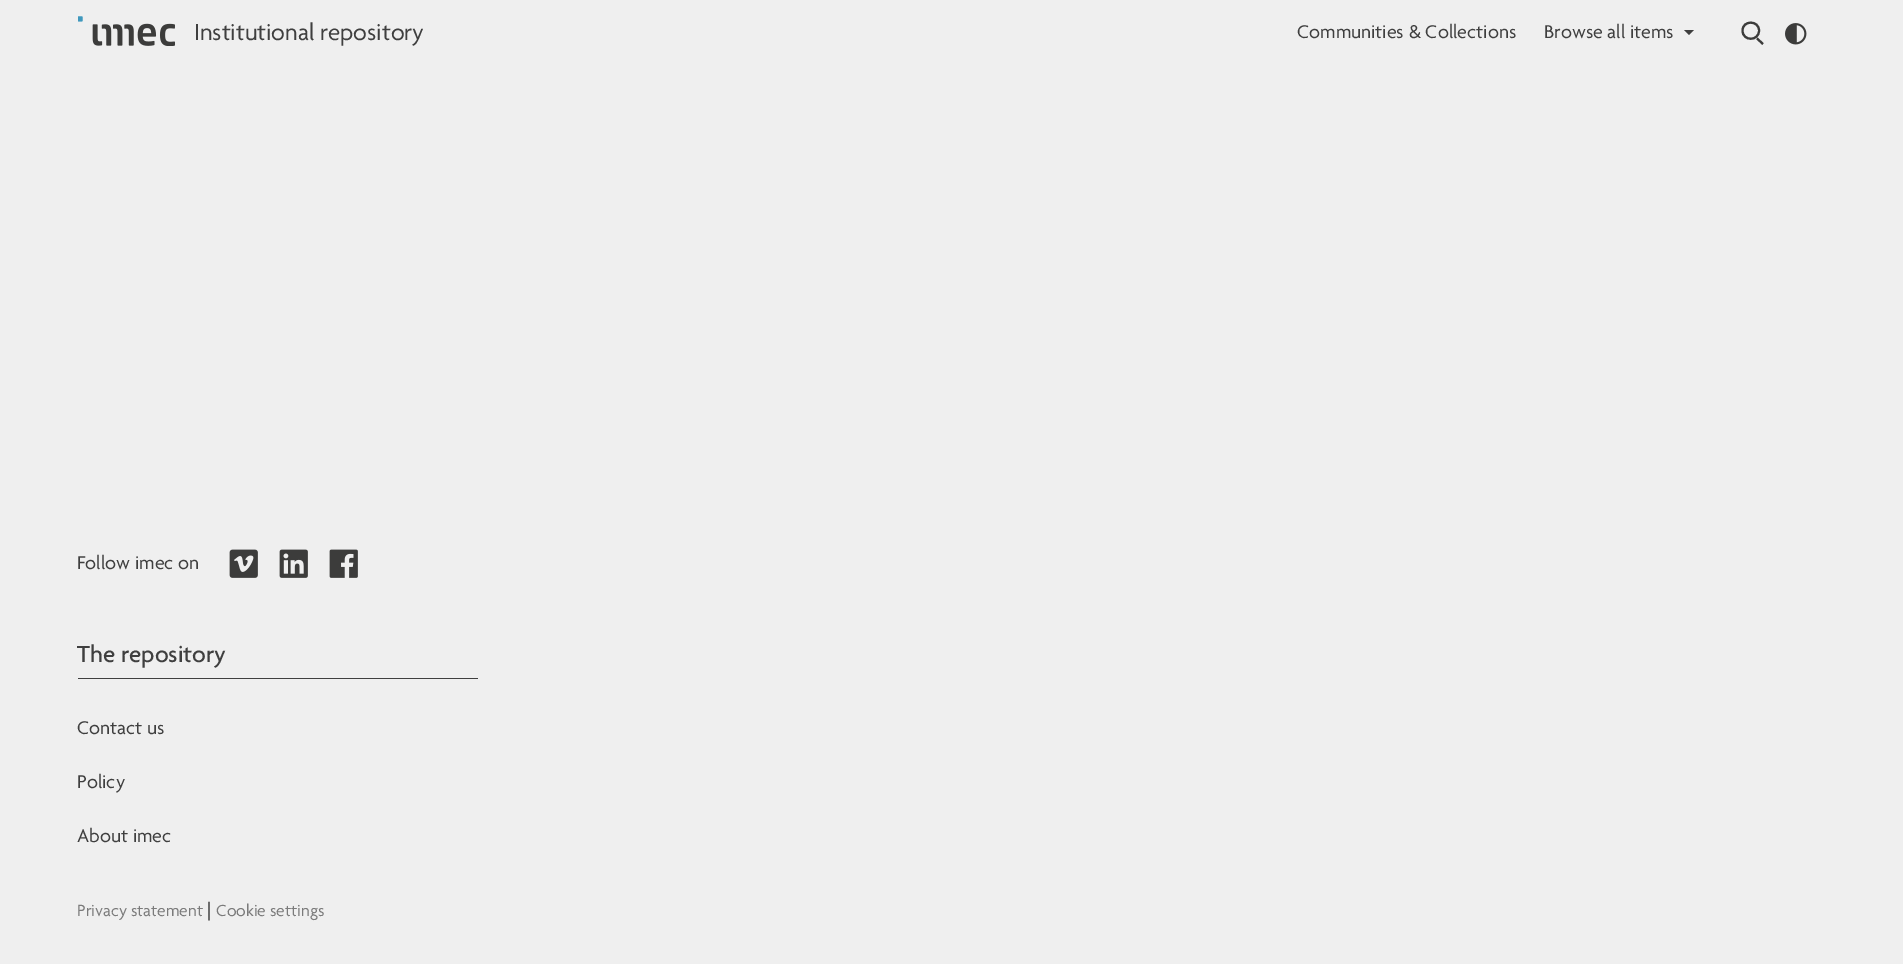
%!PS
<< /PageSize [1903 964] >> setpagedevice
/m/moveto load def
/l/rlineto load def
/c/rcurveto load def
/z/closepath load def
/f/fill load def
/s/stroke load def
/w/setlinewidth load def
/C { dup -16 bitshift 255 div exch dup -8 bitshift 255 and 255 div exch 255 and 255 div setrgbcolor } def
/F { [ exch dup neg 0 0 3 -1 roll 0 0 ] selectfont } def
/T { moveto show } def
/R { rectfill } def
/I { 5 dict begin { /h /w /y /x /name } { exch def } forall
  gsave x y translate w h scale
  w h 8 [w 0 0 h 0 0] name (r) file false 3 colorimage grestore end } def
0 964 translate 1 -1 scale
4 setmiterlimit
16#EFEFEF C
0 0 1903 964 R
(1.rgb) 78 16 97 30 I
/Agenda-Regular 25 F
16#3F3F3F C
(Institutional repository) 194 40 T
/Agenda-Regular 20 F
(Communities & Collections) 1297 38 T
(Browse all items) 1544 38 T
1684 30 m 10 0 l -5 5 l z f
16#3C3C3B C
2.1 w
1759 30.5 m 0 11 -16.5 11 -16.5 0 c 0 -10.5 16.5 -10.5 16.5 0 c z 1757 38.5 m 6 5.5 l z s
(2.rgb) 1785 23 22 22 I
16#3F3F3F C
(Follow imec on) 77 569 T
(3.rgb) 229 549 29 29 I
(4.rgb) 279 549 29 29 I
(5.rgb) 329 549 29 29 I
78 678 400 1 R
/Agenda-Medium 25 F
(The repository) 77 662 T
/Agenda-Regular 20 F
(Contact us) 77 734 T
(Policy) 77 788 T
(About imec) 77 842 T
/Agenda-Regular 17.5 F
16#7B7B7B C
(Privacy statement) 77 916 T
/Agenda-Regular 20 F
16#3F3F3F C
(|) 207 916 T
/Agenda-Regular 17.5 F
16#7B7B7B C
(Cookie settings) 216 916 T
showpage
